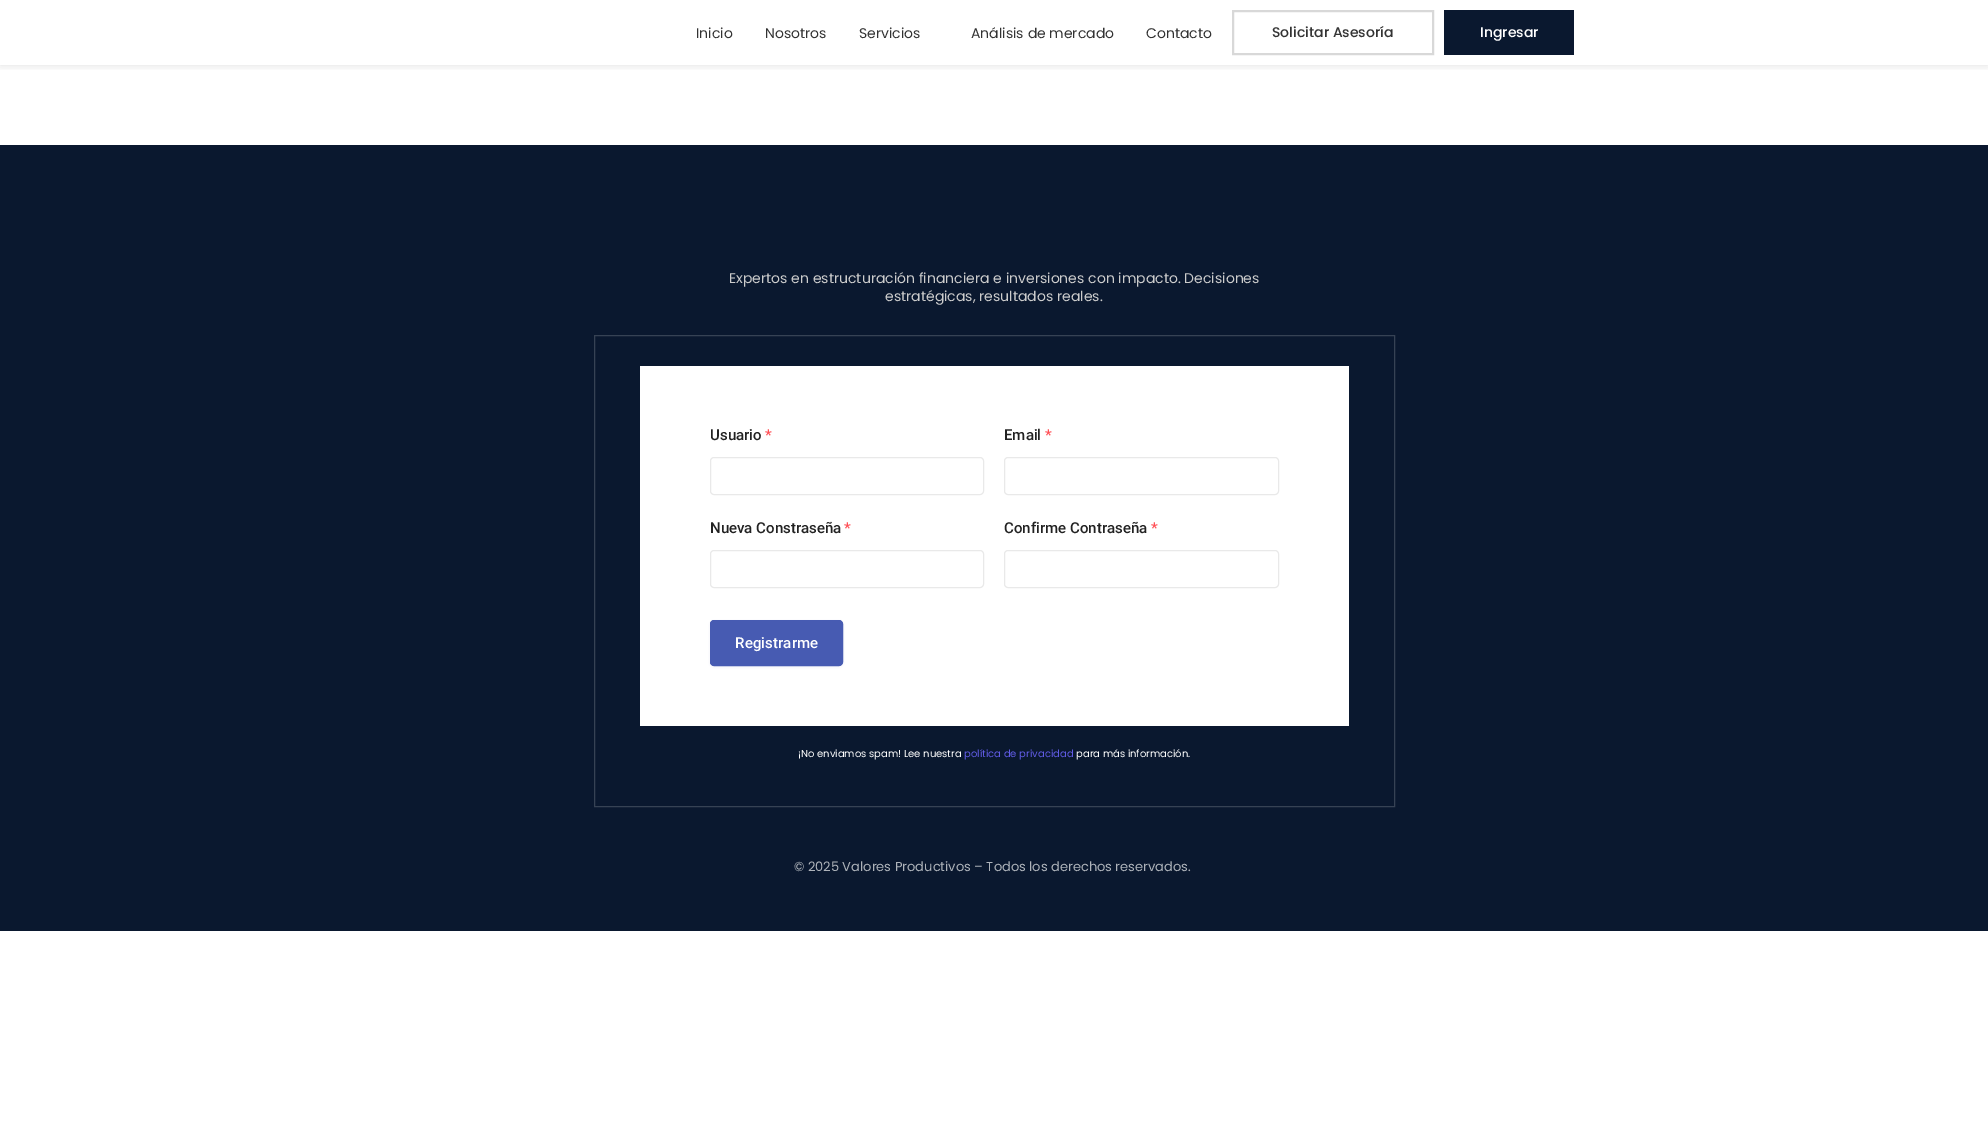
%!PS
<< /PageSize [1988 1121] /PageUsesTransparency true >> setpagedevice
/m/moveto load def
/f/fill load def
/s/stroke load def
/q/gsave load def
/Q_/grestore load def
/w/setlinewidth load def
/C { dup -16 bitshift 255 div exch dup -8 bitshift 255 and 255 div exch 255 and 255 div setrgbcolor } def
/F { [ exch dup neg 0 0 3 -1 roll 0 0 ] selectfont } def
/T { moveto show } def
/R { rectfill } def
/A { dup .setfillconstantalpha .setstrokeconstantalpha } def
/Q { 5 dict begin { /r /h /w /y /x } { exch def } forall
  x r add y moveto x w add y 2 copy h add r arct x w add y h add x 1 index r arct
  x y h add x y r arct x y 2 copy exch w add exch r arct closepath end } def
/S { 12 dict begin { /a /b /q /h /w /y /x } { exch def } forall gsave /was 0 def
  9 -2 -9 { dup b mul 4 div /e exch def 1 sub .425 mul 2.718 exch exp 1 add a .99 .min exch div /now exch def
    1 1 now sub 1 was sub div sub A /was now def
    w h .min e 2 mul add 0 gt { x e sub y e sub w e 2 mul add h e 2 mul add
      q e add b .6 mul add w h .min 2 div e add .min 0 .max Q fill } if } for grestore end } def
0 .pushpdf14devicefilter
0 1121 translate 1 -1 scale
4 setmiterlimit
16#FFFFFF C
0 0 1988 1121 R
q
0 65 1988 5 rectclip
16#000000 C
0 0 1988 65 0 5 .12 S
Q_
/Poppins-Regular 14 F
16#333333 C
(Inicio) 696 38 T
(Nosotros) 765 38 T
(Servicios) 859 38 T
(Análisis de mercado) 971 38 T
(Contacto) 1146 38 T
16#D8D8D8 C
2 w
1233 11 200 43 rectstroke
/Poppins-Medium 14 F
16#333333 C
(Solicitar Asesoría) 1272 37 T
16#0A182F C
1444 10 130 45 R
16#FFFFFF C
(Ingresar) 1480 37 T
16#0A182F C
0 145 1988 786 R
/Poppins-Regular 14 F
16#CCCCCC C
(Expertos en estructuración financiera e inversiones con impacto. Decisiones) 729 283 T
(estratégicas, resultados reales.) 885 301 T
16#364254 C
1 w
594.5 335.5 800 471 rectstroke
16#FFFFFF C
640 366 709 360 R
/Roboto-Medium 15 F
16#222222 C
(Usuario) 710 440 T
16#FF4F55 C
(*) 765 440 T
16#E9E9E9 C
710.5 457.5 273 37 3.5 Q s
16#222222 C
(Email) 1004 440 T
16#FF4F55 C
(*) 1045 440 T
16#E9E9E9 C
1004.5 457.5 274 37 3.5 Q s
16#222222 C
(Nueva Constraseña) 710 533 T
16#FF4F55 C
(*) 844 533 T
16#E9E9E9 C
710.5 550.5 273 37 3.5 Q s
16#222222 C
(Confirme Contraseña) 1004 533 T
16#FF4F55 C
(*) 1151 533 T
16#E9E9E9 C
1004.5 550.5 274 37 3.5 Q s
16#B6BBCF C
710 621 133 46 4 1.5 .15 S
16#475BB2 C
710.5 620.5 132 45 3.5 Q q f Q_
s
16#FFFFFF C
735 648 m .1 0 (Registrarme) ashow
/Poppins-Regular 10 F
(¡No enviamos spam! Lee nuestra) 798 757 T
16#605BE5 C
(política de privacidad) 964 757 T
16#FFFFFF C
(para más información.) 1076 757 T
/Poppins-Regular 13 F
16#AEB3BA C
(© 2025 Valores Productivos – Todos los derechos reservados.) 794 871 T
.poppdf14devicefilter showpage
